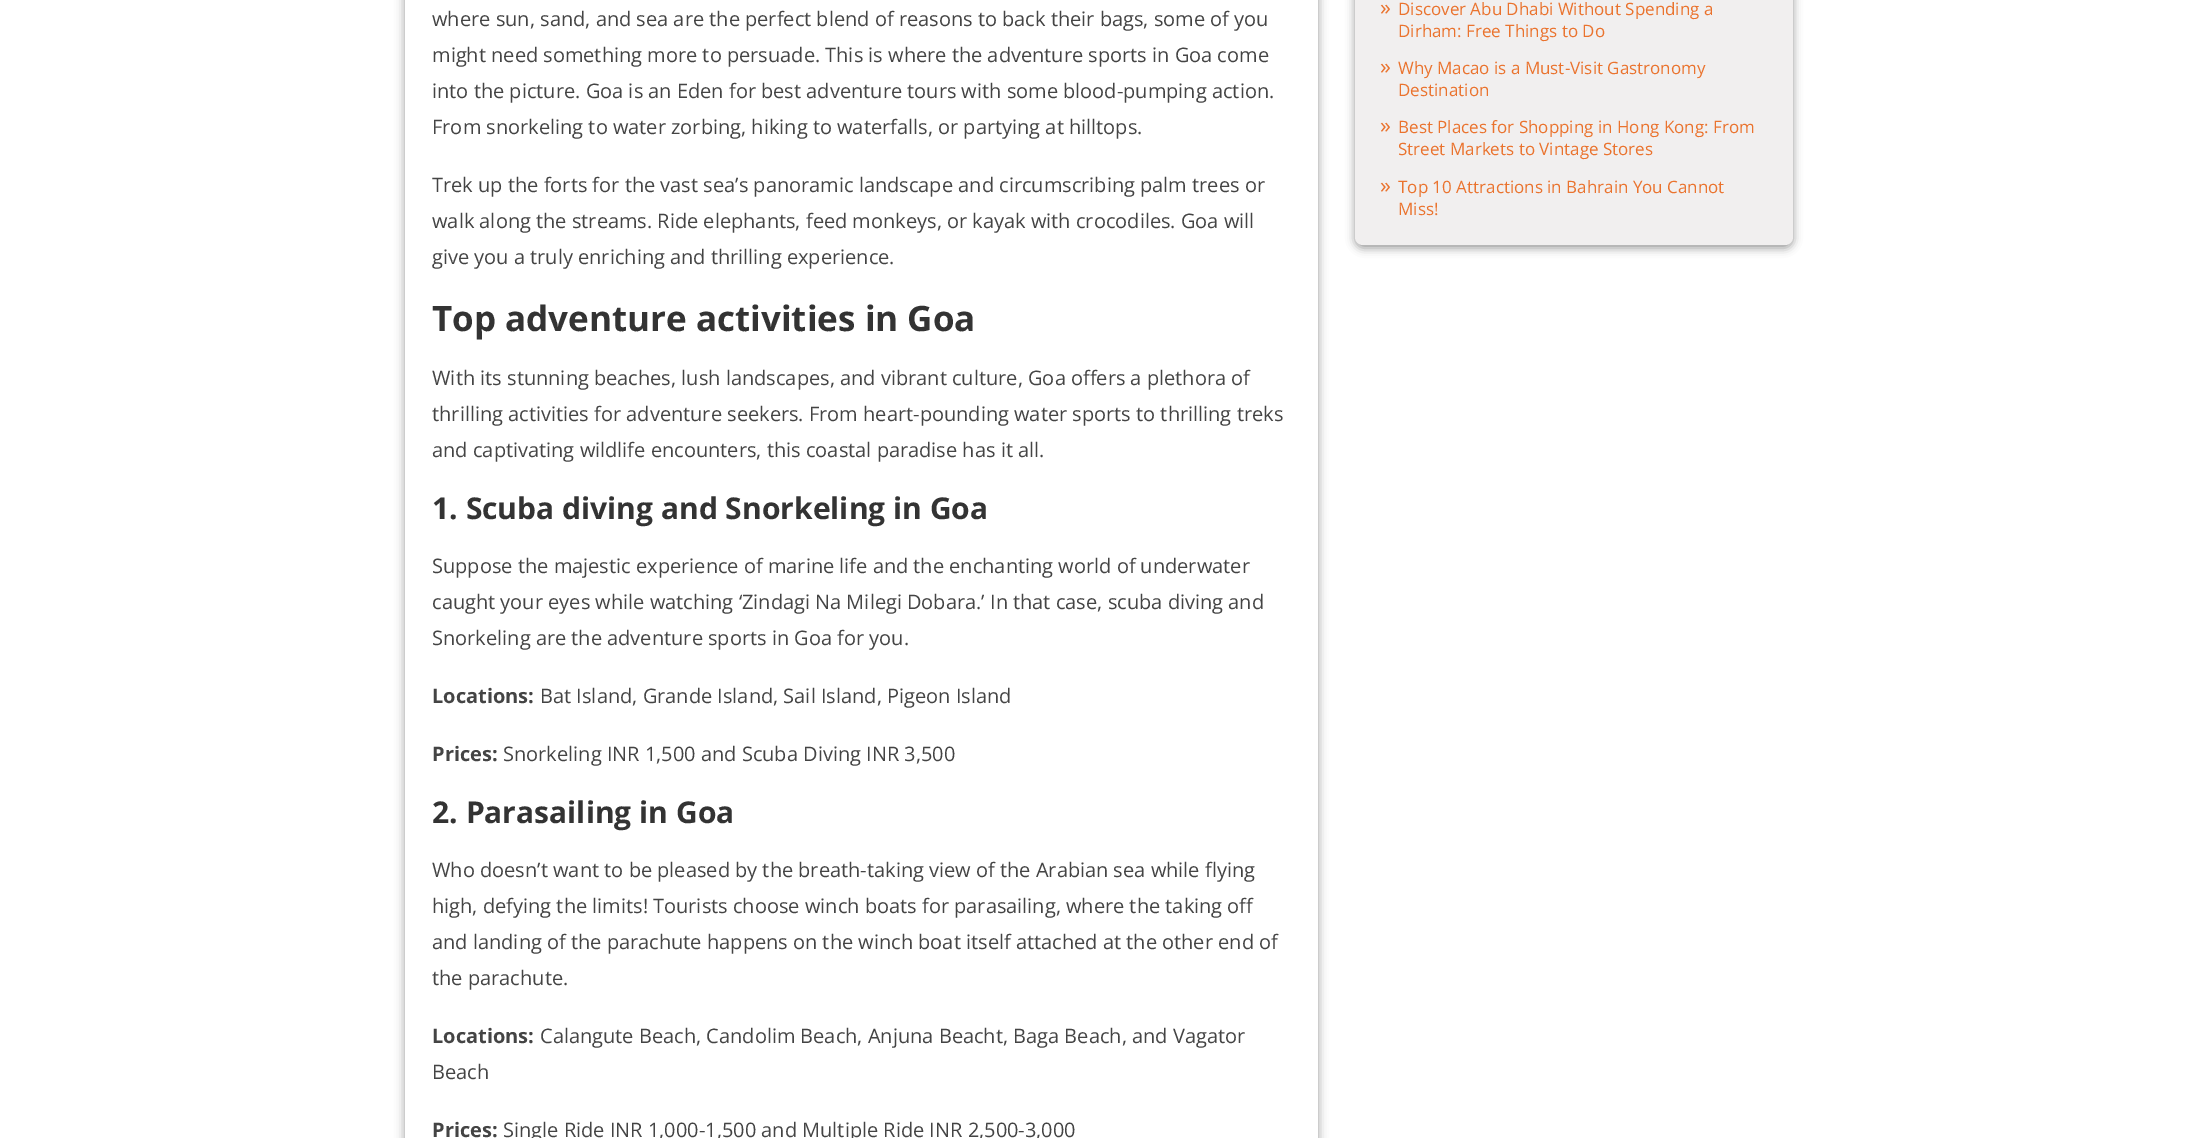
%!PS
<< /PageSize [2197 1138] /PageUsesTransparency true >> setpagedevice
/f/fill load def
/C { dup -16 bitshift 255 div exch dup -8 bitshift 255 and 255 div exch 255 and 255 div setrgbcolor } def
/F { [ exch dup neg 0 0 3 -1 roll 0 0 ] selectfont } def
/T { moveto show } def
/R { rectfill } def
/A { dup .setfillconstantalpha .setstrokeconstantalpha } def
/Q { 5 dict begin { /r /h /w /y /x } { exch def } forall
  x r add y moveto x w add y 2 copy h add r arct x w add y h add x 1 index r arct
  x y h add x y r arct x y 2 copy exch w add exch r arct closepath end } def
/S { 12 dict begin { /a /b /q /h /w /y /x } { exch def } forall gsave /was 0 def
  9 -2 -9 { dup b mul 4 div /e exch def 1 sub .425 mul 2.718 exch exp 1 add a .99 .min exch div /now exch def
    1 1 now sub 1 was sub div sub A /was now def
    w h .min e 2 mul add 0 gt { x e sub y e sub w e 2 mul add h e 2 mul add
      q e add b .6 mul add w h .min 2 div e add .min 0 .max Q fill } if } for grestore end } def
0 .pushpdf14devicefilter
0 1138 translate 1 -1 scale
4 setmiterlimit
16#FFFFFF C
0 0 2197 1138 R
16#000000 C
405 -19 913 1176 4 5 .4 S
16#FFFFFF C
405 0 913 1138 R
/OpenSans-Regular 20 F
16#444444 C
(where sun, sand, and sea are the perfect blend of reasons to back their bags, some of you) 432 26 T
(might need something more to persuade. This is where the adventure sports in Goa come) 432 62 T
(into the picture. Goa is an Eden for best adventure tours with some blood-pumping action.) 432 98 T
(From snorkeling to water zorbing, hiking to waterfalls, or partying at hilltops.) 432 134 T
(Trek up the forts for the vast sea’s panoramic landscape and circumscribing palm trees or) 432 192 T
(walk along the streams. Ride elephants, feed monkeys, or kayak with crocodiles. Goa will) 432 228 T
(give you a truly enriching and thrilling experience.) 432 264 T
/OpenSans-Bold 35 F
16#333333 C
(Top adventure activities in Goa) 432 331 T
/OpenSans-Regular 20 F
16#444444 C
(With its stunning beaches, lush landscapes, and vibrant culture, Goa offers a plethora of) 432 385 T
(thrilling activities for adventure seekers. From heart-pounding water sports to thrilling treks) 432 421 T
(and captivating wildlife encounters, this coastal paradise has it all.) 432 457 T
/OpenSans-Bold 30 F
16#333333 C
(1. Scuba diving and Snorkeling in Goa) 432 519 T
/OpenSans-Regular 20 F
16#444444 C
(Suppose the majestic experience of marine life and the enchanting world of underwater) 432 573 T
(caught your eyes while watching ‘Zindagi Na Milegi Dobara.’ In that case, scuba diving and) 432 609 T
(Snorkeling are the adventure sports in Goa for you.) 432 645 T
/OpenSans-Bold 20 F
(Locations:) 432 703 T
/OpenSans-Regular 20 F
(Bat Island, Grande Island, Sail Island, Pigeon Island) 540 703 T
/OpenSans-Bold 20 F
(Prices:) 432 761 T
/OpenSans-Regular 20 F
(Snorkeling INR 1,500 and Scuba Diving INR 3,500) 503 761 T
/OpenSans-Bold 30 F
16#333333 C
(2. Parasailing in Goa) 432 823 T
/OpenSans-Regular 20 F
16#444444 C
(Who doesn’t want to be pleased by the breath-taking view of the Arabian sea while flying) 432 877 T
(high, defying the limits! Tourists choose winch boats for parasailing, where the taking off) 432 913 T
(and landing of the parachute happens on the winch boat itself attached at the other end of) 432 949 T
(the parachute.) 432 985 T
/OpenSans-Bold 20 F
(Locations:) 432 1043 T
/OpenSans-Regular 20 F
(Calangute Beach, Candolim Beach, Anjuna Beacht, Baga Beach, and Vagator) 540 1043 T
(Beach) 432 1079 T
/OpenSans-Bold 20 F
(Prices:) 432 1137 T
/OpenSans-Regular 20 F
(Single Ride INR 1,000-1,500 and Multiple Ride INR 2,500-3,000) 503 1137 T
16#000000 C
1355 -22 438 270 8 4.5 .4 S
16#F1EFEF C
1355 -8 438 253 8 Q f
/OpenSans-Regular 22 F
16#EA732E C
(») 1380 15 T
/OpenSans-Regular 17 F
(Discover Abu Dhabi Without Spending a) 1398 15 T
(Dirham: Free Things to Do) 1398 37 T
/OpenSans-Regular 22 F
(») 1380 74 T
/OpenSans-Regular 17 F
(Why Macao is a Must-Visit Gastronomy) 1398 74 T
(Destination) 1398 96 T
/OpenSans-Regular 22 F
(») 1380 133 T
/OpenSans-Regular 17 F
(Best Places for Shopping in Hong Kong: From) 1398 133 T
(Street Markets to Vintage Stores) 1398 155 T
/OpenSans-Regular 22 F
(») 1380 193 T
/OpenSans-Regular 17 F
(Top 10 Attractions in Bahrain You Cannot) 1398 193 T
(Miss!) 1398 215 T
.poppdf14devicefilter showpage
